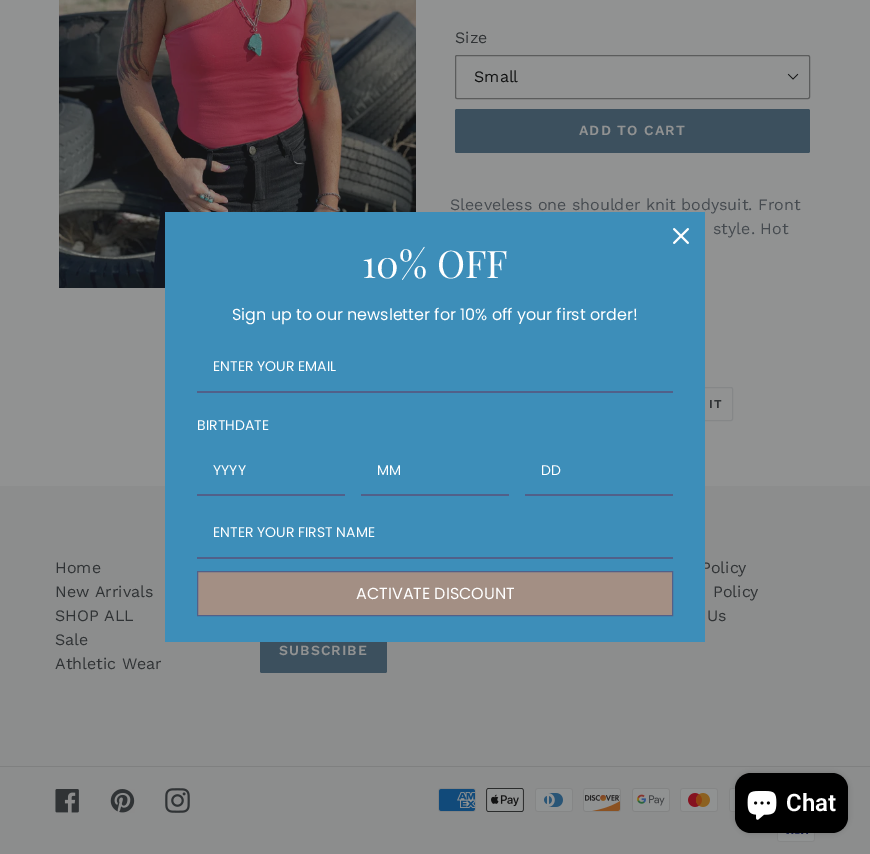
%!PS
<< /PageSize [870 854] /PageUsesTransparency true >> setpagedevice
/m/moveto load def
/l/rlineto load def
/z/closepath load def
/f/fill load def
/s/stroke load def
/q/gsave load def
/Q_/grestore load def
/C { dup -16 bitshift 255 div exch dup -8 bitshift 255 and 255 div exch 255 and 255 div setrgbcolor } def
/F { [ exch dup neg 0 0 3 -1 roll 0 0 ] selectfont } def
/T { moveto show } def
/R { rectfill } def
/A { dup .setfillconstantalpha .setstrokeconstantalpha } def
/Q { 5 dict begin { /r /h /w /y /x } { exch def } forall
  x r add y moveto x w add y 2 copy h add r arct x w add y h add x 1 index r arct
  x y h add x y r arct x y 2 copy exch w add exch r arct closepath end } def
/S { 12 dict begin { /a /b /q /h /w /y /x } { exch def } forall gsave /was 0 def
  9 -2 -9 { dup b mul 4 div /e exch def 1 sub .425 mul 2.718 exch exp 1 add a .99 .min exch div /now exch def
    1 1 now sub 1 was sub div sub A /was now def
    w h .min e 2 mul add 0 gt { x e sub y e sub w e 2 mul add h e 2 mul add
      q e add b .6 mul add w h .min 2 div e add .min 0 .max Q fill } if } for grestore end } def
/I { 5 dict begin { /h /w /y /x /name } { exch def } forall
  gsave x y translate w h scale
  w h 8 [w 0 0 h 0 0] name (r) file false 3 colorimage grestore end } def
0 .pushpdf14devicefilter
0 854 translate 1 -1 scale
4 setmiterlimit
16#919292 C
0 0 870 854 R
(1.rgb) 59 0 357 288 I
/WorkSans-Regular 16 F
16#303335 C
(Size) 455 43 T
(2.rgb) 787 73 12 7 I
16#5B5C5C C
455.5 55.5 354 43 1.5 Q s
16#111212 C
(Small) 474 82 T
16#3C505E C
455 109 355 44 2 Q f
/WorkSans-SemiBold 14 F
16#919292 C
579 135 m 1.1 0 (ADD TO CART) ashow
/WorkSans-Regular 16 F
16#464B50 C
(Sleeveless one shoulder knit bodysuit. Front) 450 210 T
(style. Hot) 713 234 T
16#858788 C
646.5 387.5 86 33 1.5 Q s
/WorkSans-SemiBold 12 F
16#303335 C
709 408 m 1 0 (IT) ashow
16#8C8D8D C
0 486 870 368 R
/WorkSans-Regular 16 F
16#303335 C
(Home) 55 573 T
(New Arrivals) 55 597 T
(SHOP ALL) 55 621 T
(Sale) 55 645 T
(Athletic Wear) 55 669 T
16#3C505E C
260 627 127 46 2 Q f
/WorkSans-SemiBold 14 F
16#919292 C
279 655 m 1.1 0 (SUBSCRIBE) ashow
/WorkSans-Regular 16 F
16#303335 C
(Policy) 701 573 T
(Policy) 713 597 T
(Us) 707 621 T
16#7F8080 C
0 766 870 1 R
(3.rgb) 55 789 24 24 I
(4.rgb) 110 789 25 24 I
(5.rgb) 165 788 25 25 I
(6.rgb) 438 788 38 24 I
(7.rgb) 486 788 38 24 I
(8.rgb) 535 788 38 24 I
(9.rgb) 583 788 38 24 I
(10.rgb) 632 788 38 24 I
(11.rgb) 680 788 38 24 I
(12.rgb) 729 788 7 24 I
(13.rgb) 777 833 38 9 I
16#3D8EB9 C
165 212 540 430 R
(14.rgb) 673 228 16 16 I
/PlayfairDisplay-Regular 38 F
16#FFFFFF C
(10% OFF) 362 278 T
/Poppins-Regular 16 F
(Sign up to our newsletter for 10% off your first order!) 232 320 T
16#516089 C
197 391 476 2 R
/Poppins-Regular 14 F
16#FFFFFF C
(ENTER YOUR EMAIL) 213 371 T
(BIRTHDATE) 197 430 T
16#516089 C
197 494 148 2 R
16#FFFFFF C
(YYYY) 213 475 T
16#516089 C
361 494 148 2 R
16#FFFFFF C
(MM) 377 475 T
16#516089 C
525 494 148 2 R
16#FFFFFF C
(DD) 541 475 T
16#516089 C
197 557 476 2 R
16#FFFFFF C
(ENTER YOUR FIRST NAME) 213 537 T
16#A38F84 C
197.5 571.5 m 475 0 l 0 44 l -475 0 l z q f Q_
16#516089 C
s
/Poppins-Regular 16 F
16#FFFFFF C
(ACTIVATE DISCOUNT) 356 599 T
16#000000 C
735 773 113 60 16 2.5 .15 S
735 773 113 60 16 Q f
(15.rgb) 747 791 30 29 I
/Roboto-SemiBold 24 F
16#FFFFFF C
(Chat) 786 811 T
.poppdf14devicefilter showpage
